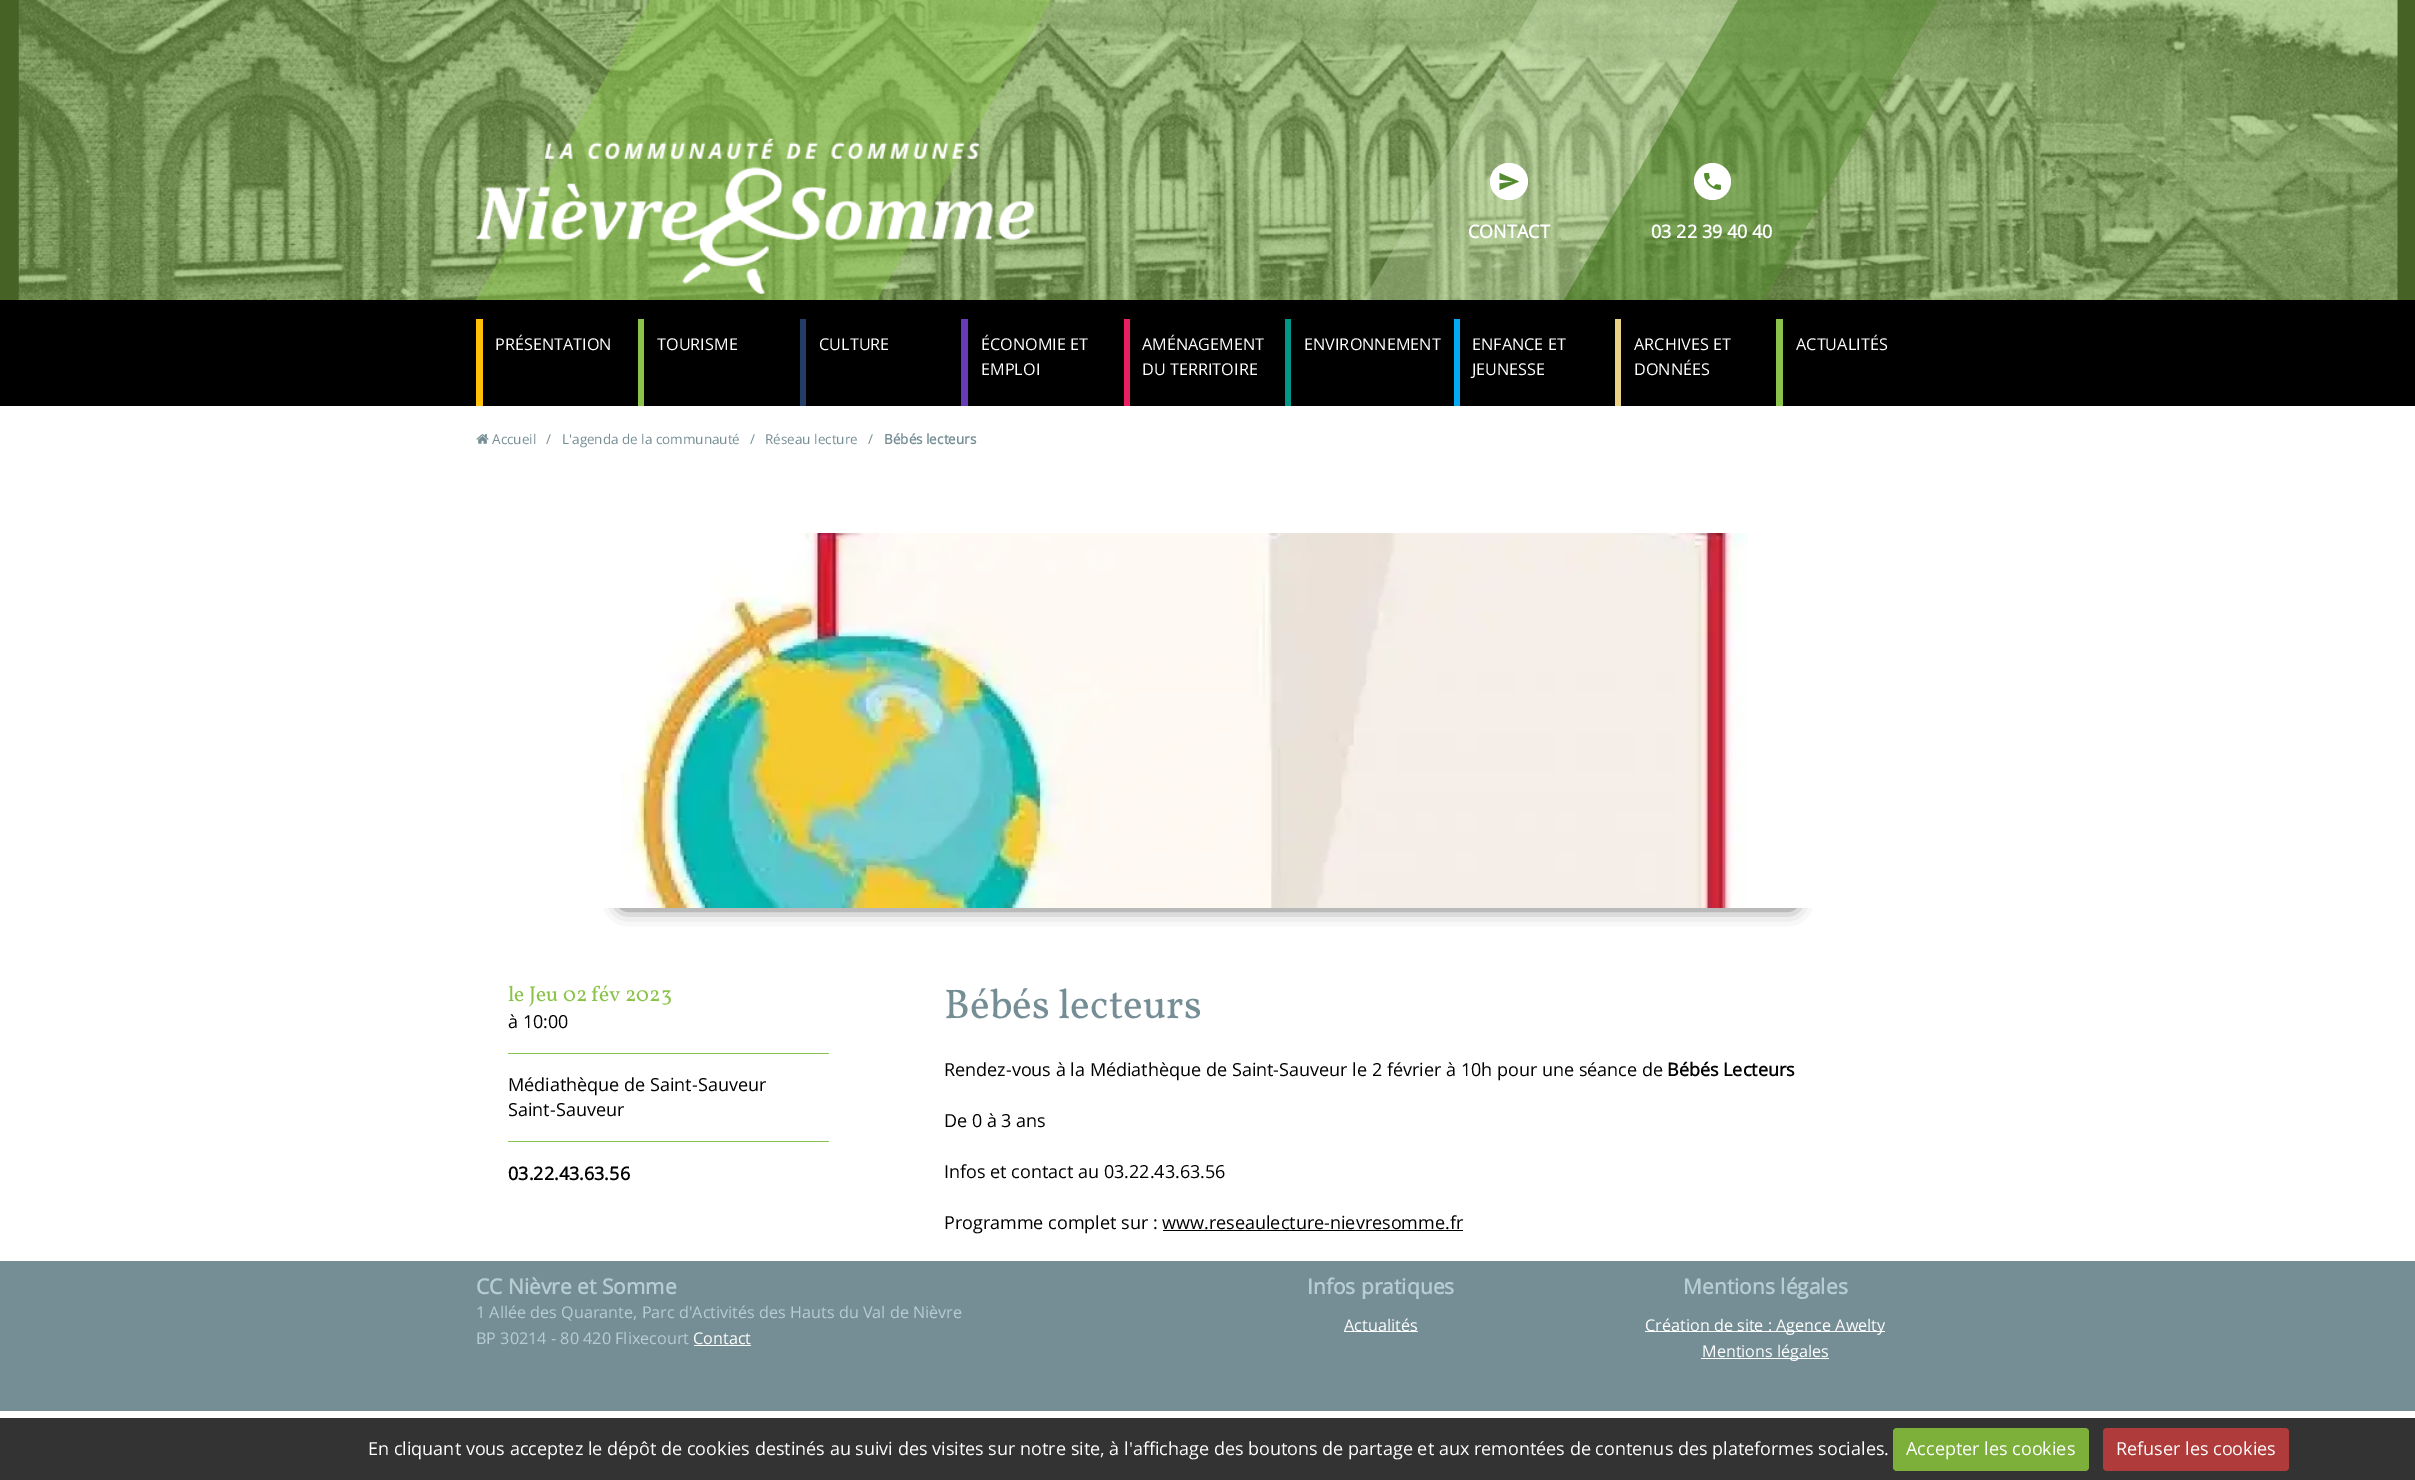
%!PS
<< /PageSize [2415 1480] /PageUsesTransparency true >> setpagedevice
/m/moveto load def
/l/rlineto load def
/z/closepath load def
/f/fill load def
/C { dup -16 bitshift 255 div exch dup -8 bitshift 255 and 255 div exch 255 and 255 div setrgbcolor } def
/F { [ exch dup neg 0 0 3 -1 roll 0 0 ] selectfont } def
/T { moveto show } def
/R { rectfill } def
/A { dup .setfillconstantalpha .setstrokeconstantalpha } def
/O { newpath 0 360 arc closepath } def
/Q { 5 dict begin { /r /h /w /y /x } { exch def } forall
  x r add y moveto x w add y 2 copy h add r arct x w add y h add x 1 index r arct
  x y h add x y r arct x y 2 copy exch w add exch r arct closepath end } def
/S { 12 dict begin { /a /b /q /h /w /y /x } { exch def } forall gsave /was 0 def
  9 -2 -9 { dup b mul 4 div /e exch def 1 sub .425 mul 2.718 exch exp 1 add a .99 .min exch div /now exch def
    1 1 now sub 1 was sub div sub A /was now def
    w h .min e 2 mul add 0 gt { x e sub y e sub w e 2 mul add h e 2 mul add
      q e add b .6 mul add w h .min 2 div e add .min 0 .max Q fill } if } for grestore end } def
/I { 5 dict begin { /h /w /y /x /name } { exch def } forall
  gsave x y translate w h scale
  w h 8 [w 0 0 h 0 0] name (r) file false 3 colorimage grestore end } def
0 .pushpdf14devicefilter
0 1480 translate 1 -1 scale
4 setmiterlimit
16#FFFFFF C
0 0 2415 1480 R
16#466225 C
0 0 2415 300 R
(1.rgb) 18 0 2380 300 I
0.5 A
16#8BC34A C
877 300 m -401 0 l 175 -300 l 400 0 l z f
0.3 A
16#DCEDC8 C
1564 300 m -200 0 l 174 -300 l 200 0 l z f
0.5 A
16#558B2F C
1764 300 m -200 0 l 174 -300 l 200 0 l z f
1 A
(2.rgb) 476 138 558 156 I
16#FFFFFF C
1490 163 38 37 18.5 Q f
16#558B2F C
1499.5 190 m 19.5 -8.5 l -19.5 -8.5 l 0 6.5 l 14 2 l -14 2 l z f
/OpenSans-Bold 18 F
16#FFFFFF C
(CONTACT) 1468 238 T
1712.5 181.5 18.5 O f
(3.rgb) 1704 173 17 17 I
(03 22 39 40 40) 1651 238 T
16#000000 C
0 300 2415 106 R
16#FFC107 C
476 319 7 87 R
/OpenSans-Regular 16.25 F
16#FFFFFF C
(PRÉSENTATION) 495 350 T
16#8BC34A C
638 319 6 87 R
16#FFFFFF C
(TOURISME) 657 350 T
16#233E66 C
800 319 6 87 R
16#FFFFFF C
(CULTURE) 819 350 T
16#673AB7 C
961 319 7 87 R
16#FFFFFF C
(ÉCONOMIE ET) 981 350 T
(EMPLOI) 981 375 T
16#E91E63 C
1124 319 6 87 R
16#FFFFFF C
(AMÉNAGEMENT) 1142 350 T
(DU TERRITOIRE) 1142 375 T
16#009688 C
1285 319 6 87 R
16#FFFFFF C
(ENVIRONNEMENT) 1304 350 T
16#03A9F4 C
1454 319 6 87 R
16#FFFFFF C
(ENFANCE ET) 1472 350 T
(JEUNESSE) 1472 375 T
16#EAD083 C
1615 319 6 87 R
16#FFFFFF C
(ARCHIVES ET) 1634 350 T
(DONNÉES) 1634 375 T
16#8BC34A C
1776 319 7 87 R
16#FFFFFF C
(ACTUALITÉS) 1796 350 T
(4.rgb) 476 434 13 10 I
/OpenSans-Regular 13.5 F
16#758D94 C
(Accueil) 492 444 T
(/) 546 444 T
(L'agenda de la communauté) 562 444 T
(/) 750 444 T
(Réseau lecture) 765 444 T
(/) 868 444 T
/OpenSans-Bold 13.5 F
(Bébés lecteurs) 884 444 T
16#000000 C
623 843 1170 62 0 9.5 .9 S
16#FFFFFF C
601 821 1214 87 R
(5.rgb) 621 533 1127 375 I
16#8BC34A C
508 1053 321 1 R
/Vollkorn-Regular 21.5 F
(le Jeu 02 fév 2023) 508 1001 T
/OpenSans-Regular 18 F
16#000000 C
(à 10:00) 508 1028 T
16#8BC34A C
508 1141 321 1 R
16#000000 C
(Médiathèque de Saint-Sauveur) 508 1091 T
(Saint-Sauveur) 508 1116 T
/OpenSans-Bold 18 F
(03.22.43.63.56) 508 1180 T
/Vollkorn-Regular 41.5 F
16#758D94 C
(Bébés lecteurs) 944 1018 T
/OpenSans-Regular 18 F
16#000000 C
(Rendez-vous à la Médiathèque de Saint-Sauveur le 2 février à 10h pour une séance de) 944 1076 T
/OpenSans-Bold 18 F
(Bébés Lecteurs) 1667 1076 T
/OpenSans-Regular 18 F
(De 0 à 3 ans) 944 1127 T
(Infos et contact au 03.22.43.63.56) 944 1178 T
(Programme complet sur : www.reseaulecture-nievresomme.fr) 944 1229 T
1163 1230 300 1 R
16#758D94 C
0 1261 2415 150 R
/OpenSans-Bold 21 F
16#B7CDD4 C
(CC Nièvre et Somme) 476 1294 T
/OpenSans-Regular 16.2 F
(1 Allée des Quarante, Parc d'Activités des Hauts du Val de Nièvre) 476 1318 T
(BP 30214 - 80 420 Flixecourt) 476 1344 T
16#FFFFFF C
(Contact) 693 1344 T
694 1345 57 1 R
/OpenSans-Bold 21 F
16#B7CDD4 C
(Infos pratiques) 1307 1294 T
16#FFFFFF C
1344 1331 74 1 R
/OpenSans-Regular 16.2 F
(Actualités) 1344 1331 T
/OpenSans-Bold 21 F
16#B7CDD4 C
(Mentions légales) 1683 1294 T
16#FFFFFF C
1645 1331 240 1 R
/OpenSans-Regular 16.2 F
(Création de site : Agence Awelty) 1645 1331 T
1701 1358 128 1 R
(Mentions légales) 1702 1357 T
16#333333 C
0 1418 2415 62 R
/OpenSans-Regular 18 F
16#FFFFFF C
(En cliquant vous acceptez le dépôt de cookies destinés au suivi des visites sur notre site, à l'affichage des boutons de partage et aux remontées de contenus des plateformes sociales.) 368 1455 T
16#7DAF3B C
1893 1428 196 43 4 Q f
16#FFFFFF C
(Accepter les cookies) 1906 1455 T
16#AF3B3B C
2103 1428 186 43 4 Q f
16#FFFFFF C
(Refuser les cookies) 2116 1455 T
.poppdf14devicefilter showpage
